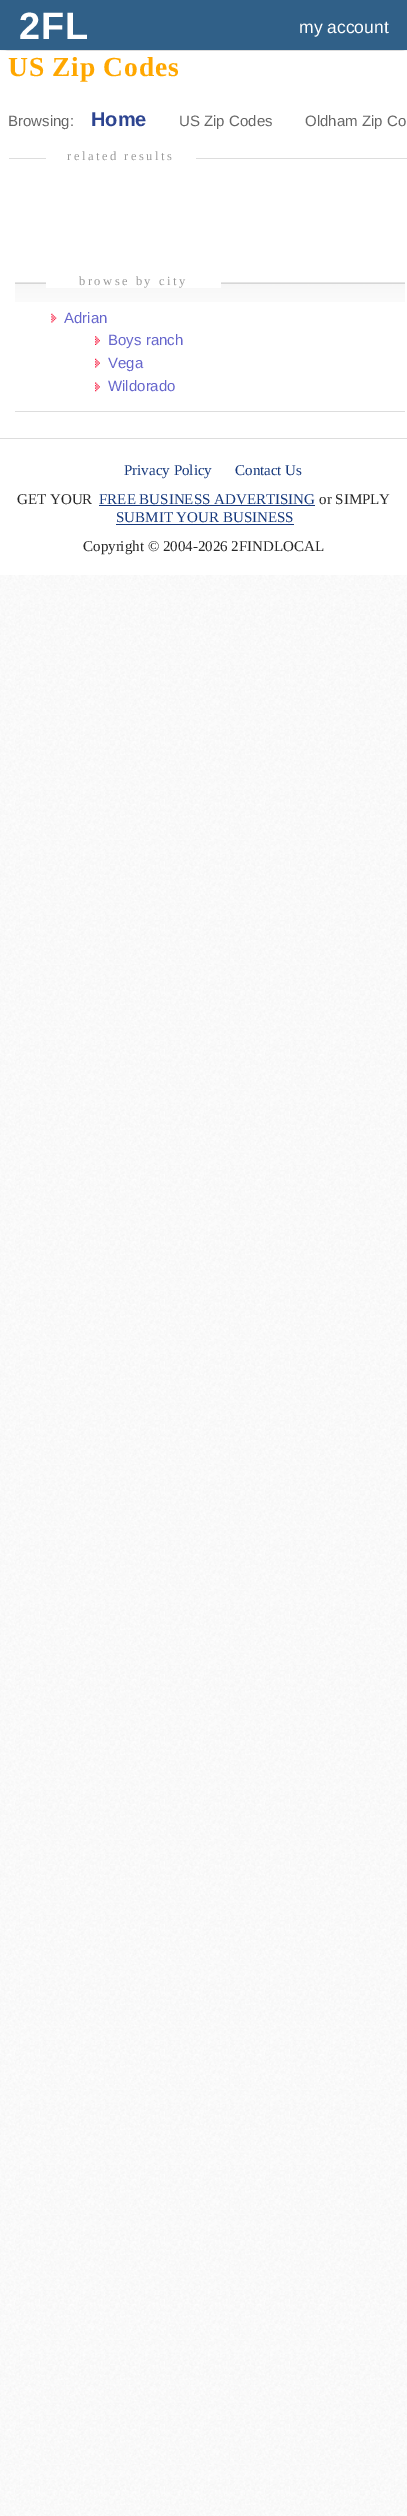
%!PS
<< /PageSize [407 2516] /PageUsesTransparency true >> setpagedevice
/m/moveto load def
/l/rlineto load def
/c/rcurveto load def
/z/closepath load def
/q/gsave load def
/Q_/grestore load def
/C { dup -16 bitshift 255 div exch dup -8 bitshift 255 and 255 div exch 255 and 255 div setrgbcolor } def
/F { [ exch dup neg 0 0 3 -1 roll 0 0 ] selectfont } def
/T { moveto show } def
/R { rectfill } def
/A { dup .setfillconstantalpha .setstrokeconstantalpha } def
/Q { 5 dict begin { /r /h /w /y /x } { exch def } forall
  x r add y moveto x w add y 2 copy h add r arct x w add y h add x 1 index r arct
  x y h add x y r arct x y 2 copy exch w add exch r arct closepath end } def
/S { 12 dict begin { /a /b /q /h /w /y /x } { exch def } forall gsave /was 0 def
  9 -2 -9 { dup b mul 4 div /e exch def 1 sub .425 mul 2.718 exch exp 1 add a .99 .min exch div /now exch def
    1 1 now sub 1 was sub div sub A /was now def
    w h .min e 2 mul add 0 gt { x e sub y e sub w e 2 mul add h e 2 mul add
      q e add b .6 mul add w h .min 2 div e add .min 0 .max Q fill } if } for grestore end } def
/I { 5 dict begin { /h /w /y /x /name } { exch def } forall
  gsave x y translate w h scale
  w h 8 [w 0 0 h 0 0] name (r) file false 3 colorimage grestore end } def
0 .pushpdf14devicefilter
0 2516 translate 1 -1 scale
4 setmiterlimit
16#FFFFFF C
0 0 407 2516 R
(1.rgb) 0 50 407 2466 I
0 51 407 387 R
q
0 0 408 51 rectclip
16#DDDDDD C
0 0 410 51 10 2.5 1 S
Q_
16#DDDDDD C
0 0 m 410 0 l 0 41 l 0 6 -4 10 -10 10 c -390 0 l -6 0 -10 -4 -10 -10 c z 1 0 m 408 0 l 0 41 l 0 5 -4 9 -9 9 c -390 0 l -5 0 -9 -4 -9 -9 c z eofill
16#306088 C
0 0 407 50 R
/LiberationSans-Bold 38 F
16#FFFFFF C
19 39 m 1 0 (2FL) ashow
/LiberationSans-Regular 17.5 F
(my account) 299 33 T
/LiberationSerif-Bold 27.5 F
16#FFA700 C
8 76 m .75 0 (US Zip Codes) ashow
/LiberationSans-Regular 15 F
16#666666 C
(Browsing:) 8 126 T
/LiberationSans-Bold 20 F
16#2D4490 C
(Home) 91 126 T
/LiberationSans-Regular 15 F
16#666666 C
(US Zip Codes) 179 126 T
(Oldham Zip Co) 305 126 T
16#DDDDDD C
9 158 398 1 R
16#FFFFFF C
46 158 150 1 R
/LiberationSerif-Regular 12.5 F
16#999999 C
67 160 m 2.5 0 (related results) ashow
(2.rgb) 15 282 390 20 I
16#FFFFFF C
46 282 175 6 R
16#999999 C
79 285 m 2.5 0 (browse by city) ashow
16#DDDDDD C
15 411 390 1 R
(3.rgb) 51 313 6 10 I
/LiberationSans-Regular 15 F
16#6666CC C
(Adrian) 64 323 T
(4.rgb) 95 336 5 9 I
(Boys ranch) 108 345 T
(5.rgb) 95 358 5 10 I
(Vega) 108 368 T
(6.rgb) 95 382 5 10 I
(Wildorado) 108 391 T
16#FFFFFF C
0 439 407 136 R
16#DDDDDD C
0 438 407 1 R
/LiberationSerif-Regular 15 F
16#16387C C
(Privacy Policy) 124 475 T
(Contact Us) 235 475 T
16#272727 C
(GET YOUR) 17 504 T
16#16387C C
(FREE BUSINESS ADVERTISING) 99 504 T
99 505 216 1 R
16#272727 C
(or SIMPLY) 319 504 T
16#16387C C
(SUBMIT YOUR BUSINESS) 116 522 T
116 524 178 1 R
16#272727 C
(Copyright © 2004-2026 2FINDLOCAL) 83 551 T
.poppdf14devicefilter showpage
